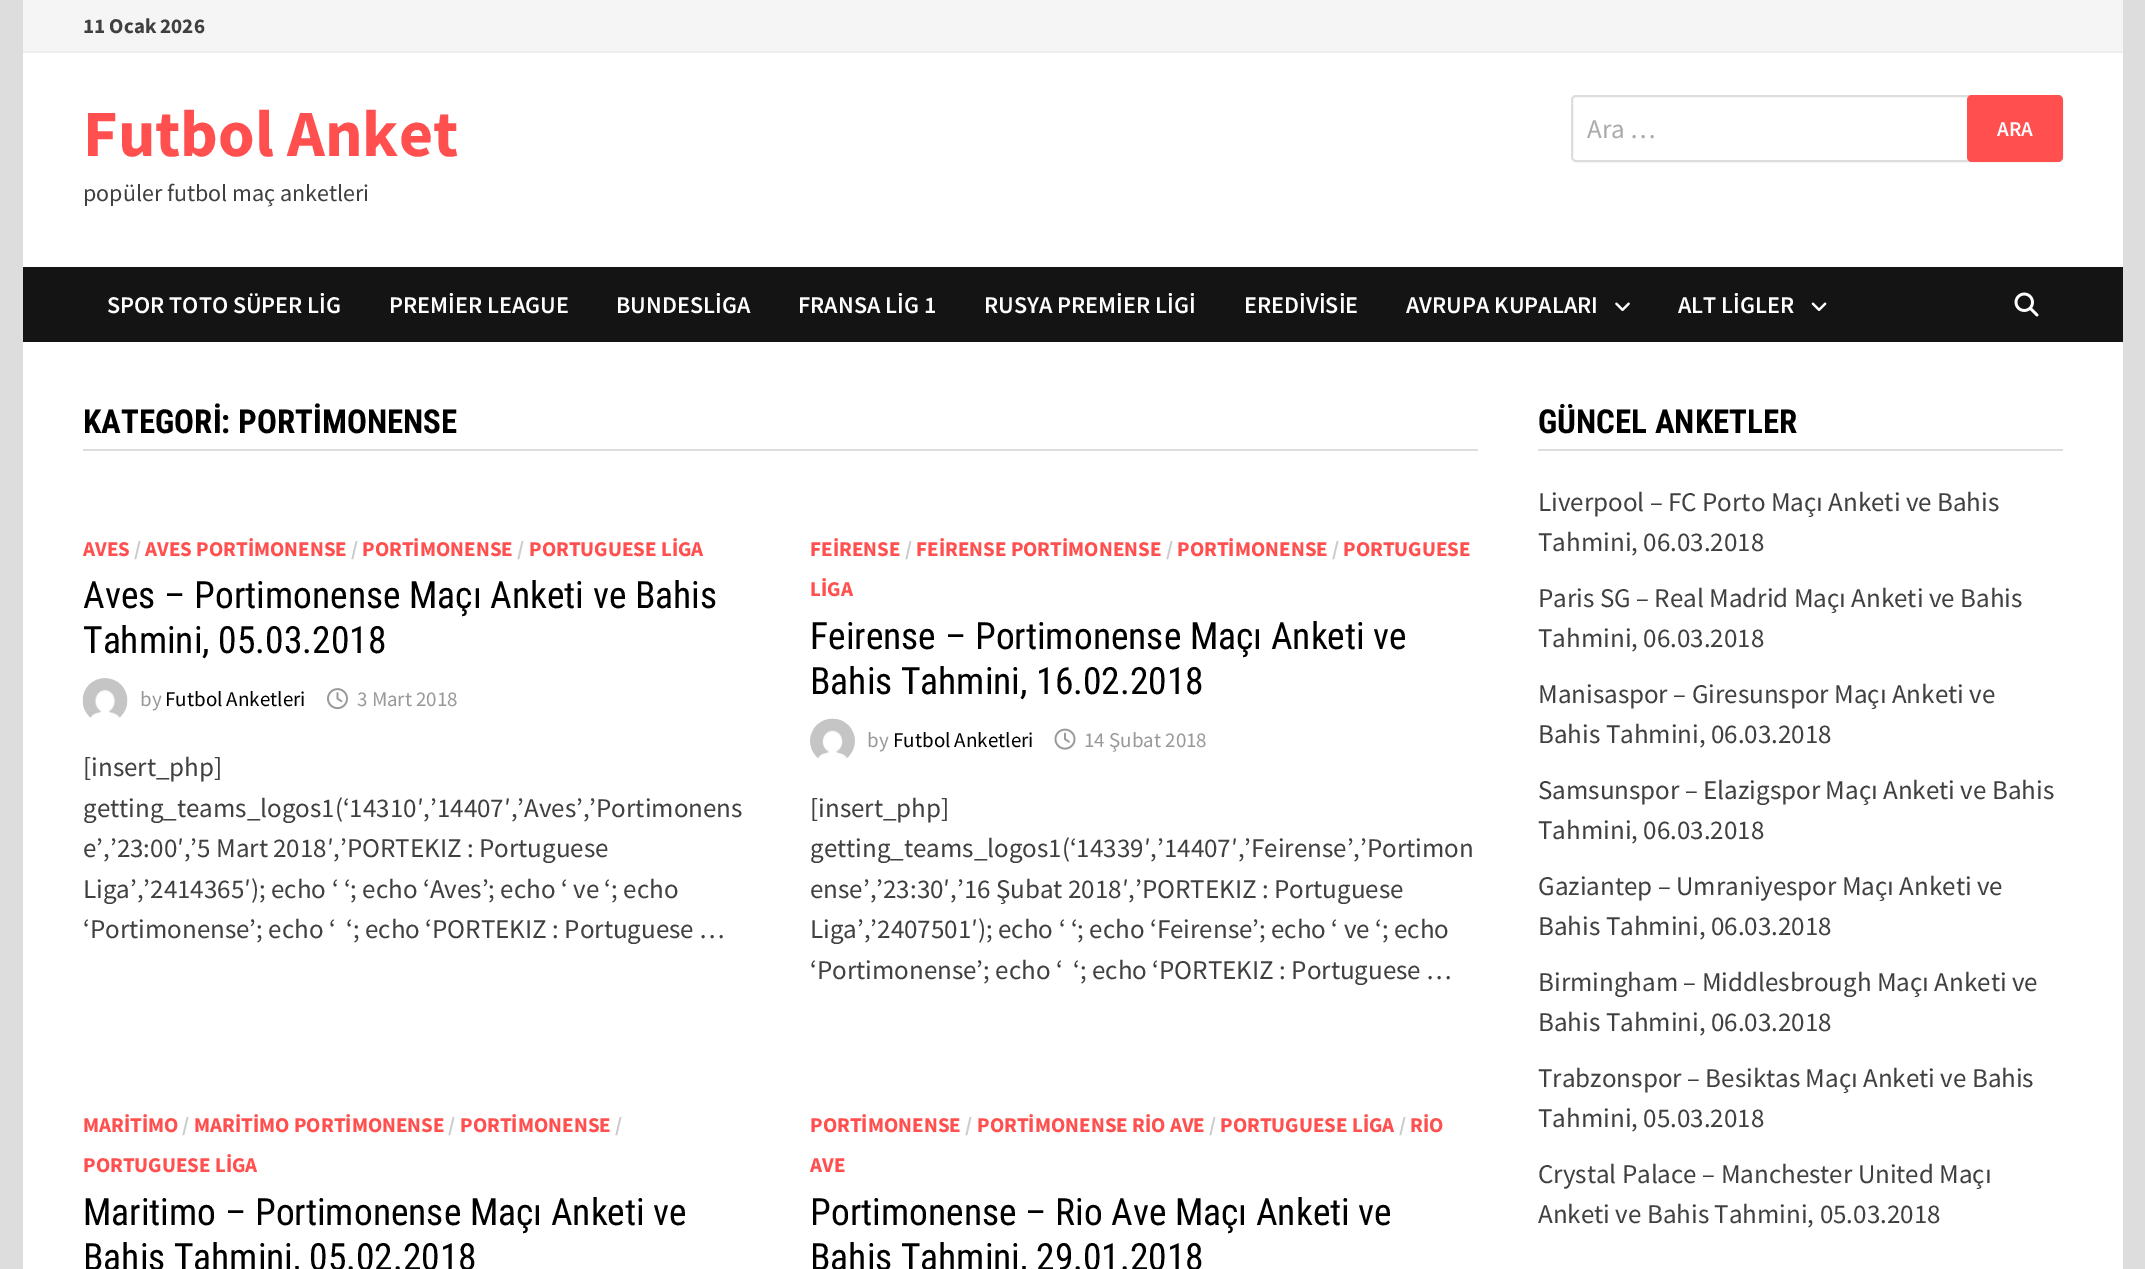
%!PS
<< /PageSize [2145 1269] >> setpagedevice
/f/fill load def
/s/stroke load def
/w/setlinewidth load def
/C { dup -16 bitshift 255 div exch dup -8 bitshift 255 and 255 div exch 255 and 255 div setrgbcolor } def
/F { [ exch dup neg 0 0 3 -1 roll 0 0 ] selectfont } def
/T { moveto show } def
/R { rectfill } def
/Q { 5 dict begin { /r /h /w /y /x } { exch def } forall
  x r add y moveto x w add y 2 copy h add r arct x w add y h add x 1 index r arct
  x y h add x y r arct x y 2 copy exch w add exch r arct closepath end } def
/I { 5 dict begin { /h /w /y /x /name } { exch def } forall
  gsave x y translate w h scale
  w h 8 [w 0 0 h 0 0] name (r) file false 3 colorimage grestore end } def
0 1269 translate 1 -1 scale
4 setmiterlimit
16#DDDDDD C
0 0 2145 1269 R
16#FFFFFF C
23 53 2100 1216 R
16#F5F5F5 C
23 0 2100 51 R
16#EEEEEE C
23 51 2100 2 R
/SourceSansPro-Bold 21 F
16#404040 C
(11 Ocak 2026) 83 33 T
/SourceSansPro-Bold 66 F
16#FF4F4F C
(Futbol Anket) 83 156 T
/SourceSansPro-Regular 24 F
16#404040 C
(popüler futbol maç anketleri) 83 201 T
16#DDDDDD C
2 w
1572 96 490 65 4 Q s
/SourceSansPro-Regular 27 F
16#AAAAAA C
(Ara …) 1587 138 T
16#FF4F4F C
1967 95 96 67 5 Q f
/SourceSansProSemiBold-SemiBold 21 F
16#FFFFFF C
(ARA) 1997 136 T
16#141414 C
23 267 2100 75 R
/SourceSansProSemiBold-SemiBold 24 F
16#FFFFFF C
(SPOR TOTO SÜPER LİG) 107 313 T
(PREMİER LEAGUE) 389 313 T
(BUNDESLİGA) 616 313 T
(FRANSA LİG 1) 798 313 T
(RUSYA PREMİER LİGİ) 984 313 T
(EREDİVİSİE) 1244 313 T
(AVRUPA KUPALARI) 1406 313 T
(1.rgb) 1615 302 15 9 I
(ALT LİGLER) 1678 313 T
(2.rgb) 1811 302 16 9 I
(3.rgb) 2014 292 25 25 I
16#DDDDDD C
83 449 1395 2 R
/RobotoCondensed-Bold 33 F
16#000000 C
(KATEGORİ: PORTİMONENSE) 83 433 T
/SourceSansPro-Bold 21 F
16#FF4F4F C
(AVES) 83 556 T
16#CCCCCC C
(/) 134 556 T
16#FF4F4F C
(AVES PORTİMONENSE) 145 556 T
16#CCCCCC C
(/) 351 556 T
16#FF4F4F C
(PORTİMONENSE) 362 556 T
16#CCCCCC C
(/) 517 556 T
16#FF4F4F C
(PORTUGUESE LİGA) 529 556 T
/RobotoCondensed-Regular 37.5 F
16#000000 C
(Aves – Portimonense Maçı Anketi ve Bahis) 83 608 T
(Tahmini, 05.03.2018) 83 653 T
(4.rgb) 82 678 46 40 I
/SourceSansPro-Regular 21 F
16#999999 C
(by) 140 706 T
16#000000 C
(Futbol Anketleri) 165 706 T
(5.rgb) 327 688 21 22 I
16#999999 C
(3 Mart 2018) 357 706 T
/SourceSansPro-Regular 27 F
16#404040 C
([insert_php]) 83 776 T
(getting_teams_logos1\(‘14310′,’14407′,’Aves’,’Portimonens) 83 817 T
(e’,’23:00′,’5 Mart 2018′,’PORTEKIZ : Portuguese) 83 857 T
(Liga’,’2414365′\); echo ‘ ‘; echo ‘Aves’; echo ‘ ve ‘; echo) 83 898 T
(‘Portimonense’; echo ‘  ‘; echo ‘PORTEKIZ : Portuguese …) 83 938 T
/SourceSansPro-Bold 21 F
16#FF4F4F C
(FEİRENSE) 810 556 T
16#CCCCCC C
(/) 905 556 T
16#FF4F4F C
(FEİRENSE PORTİMONENSE) 916 556 T
16#CCCCCC C
(/) 1166 556 T
16#FF4F4F C
(PORTİMONENSE) 1177 556 T
16#CCCCCC C
(/) 1332 556 T
16#FF4F4F C
(PORTUGUESE) 1343 556 T
(LİGA) 810 596 T
/RobotoCondensed-Regular 37.5 F
16#000000 C
(Feirense – Portimonense Maçı Anketi ve) 810 649 T
(Bahis Tahmini, 16.02.2018) 810 694 T
(6.rgb) 810 718 45 41 I
/SourceSansPro-Regular 21 F
16#999999 C
(by) 867 747 T
16#000000 C
(Futbol Anketleri) 893 747 T
(7.rgb) 1054 728 22 22 I
16#999999 C
(14 Şubat 2018) 1084 747 T
/SourceSansPro-Regular 27 F
16#404040 C
([insert_php]) 810 817 T
(getting_teams_logos1\(‘14339′,’14407′,’Feirense’,’Portimon) 810 857 T
(ense’,’23:30′,’16 Şubat 2018′,’PORTEKIZ : Portuguese) 810 898 T
(Liga’,’2407501′\); echo ‘ ‘; echo ‘Feirense’; echo ‘ ve ‘; echo) 810 938 T
(‘Portimonense’; echo ‘  ‘; echo ‘PORTEKIZ : Portuguese …) 810 979 T
/SourceSansPro-Bold 21 F
16#FF4F4F C
(MARİTİMO) 83 1132 T
16#CCCCCC C
(/) 182 1132 T
16#FF4F4F C
(MARİTİMO PORTİMONENSE) 194 1132 T
16#CCCCCC C
(/) 448 1132 T
16#FF4F4F C
(PORTİMONENSE) 460 1132 T
16#CCCCCC C
(/) 615 1132 T
16#FF4F4F C
(PORTUGUESE LİGA) 83 1172 T
/RobotoCondensed-Regular 37.5 F
16#000000 C
(Maritimo – Portimonense Maçı Anketi ve) 83 1225 T
(Bahis Tahmini, 05.02.2018) 83 1270 T
/SourceSansPro-Bold 21 F
16#FF4F4F C
(PORTİMONENSE) 810 1132 T
16#CCCCCC C
(/) 965 1132 T
16#FF4F4F C
(PORTİMONENSE RİO AVE) 977 1132 T
16#CCCCCC C
(/) 1209 1132 T
16#FF4F4F C
(PORTUGUESE LİGA) 1220 1132 T
16#CCCCCC C
(/) 1399 1132 T
16#FF4F4F C
(RİO) 1410 1132 T
(AVE) 810 1172 T
/RobotoCondensed-Regular 37.5 F
16#000000 C
(Portimonense – Rio Ave Maçı Anketi ve) 810 1225 T
(Bahis Tahmini, 29.01.2018) 810 1270 T
16#DDDDDD C
1538 449 525 2 R
/RobotoCondensed-Bold 33 F
16#000000 C
(GÜNCEL ANKETLER) 1538 433 T
/SourceSansPro-Regular 27 F
16#404040 C
(Liverpool – FC Porto Maçı Anketi ve Bahis) 1538 511 T
(Tahmini, 06.03.2018) 1538 551 T
(Paris SG – Real Madrid Maçı Anketi ve Bahis) 1538 607 T
(Tahmini, 06.03.2018) 1538 647 T
(Manisaspor – Giresunspor Maçı Anketi ve) 1538 703 T
(Bahis Tahmini, 06.03.2018) 1538 743 T
(Samsunspor – Elazigspor Maçı Anketi ve Bahis) 1538 799 T
(Tahmini, 06.03.2018) 1538 839 T
(Gaziantep – Umraniyespor Maçı Anketi ve) 1538 895 T
(Bahis Tahmini, 06.03.2018) 1538 935 T
(Birmingham – Middlesbrough Maçı Anketi ve) 1538 991 T
(Bahis Tahmini, 06.03.2018) 1538 1031 T
(Trabzonspor – Besiktas Maçı Anketi ve Bahis) 1538 1087 T
(Tahmini, 05.03.2018) 1538 1127 T
(Crystal Palace – Manchester United Maçı) 1538 1183 T
(Anketi ve Bahis Tahmini, 05.03.2018) 1538 1223 T
showpage
